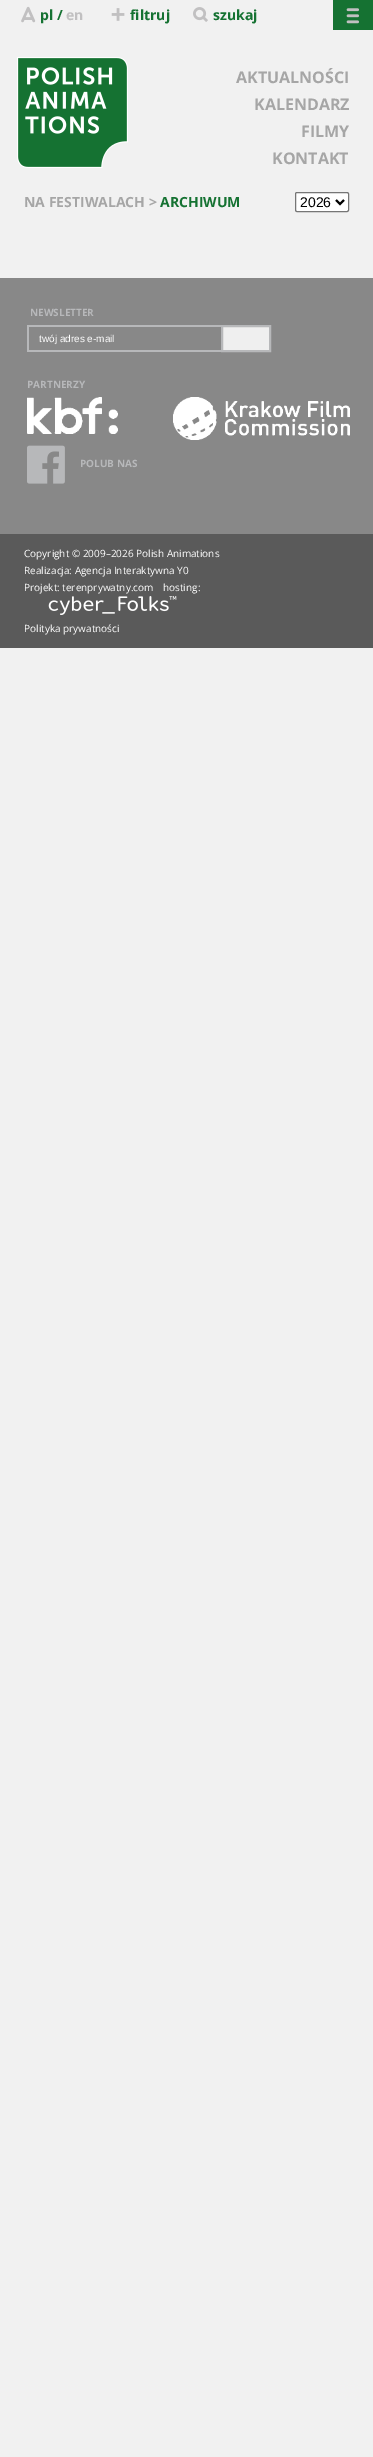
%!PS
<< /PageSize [373 2457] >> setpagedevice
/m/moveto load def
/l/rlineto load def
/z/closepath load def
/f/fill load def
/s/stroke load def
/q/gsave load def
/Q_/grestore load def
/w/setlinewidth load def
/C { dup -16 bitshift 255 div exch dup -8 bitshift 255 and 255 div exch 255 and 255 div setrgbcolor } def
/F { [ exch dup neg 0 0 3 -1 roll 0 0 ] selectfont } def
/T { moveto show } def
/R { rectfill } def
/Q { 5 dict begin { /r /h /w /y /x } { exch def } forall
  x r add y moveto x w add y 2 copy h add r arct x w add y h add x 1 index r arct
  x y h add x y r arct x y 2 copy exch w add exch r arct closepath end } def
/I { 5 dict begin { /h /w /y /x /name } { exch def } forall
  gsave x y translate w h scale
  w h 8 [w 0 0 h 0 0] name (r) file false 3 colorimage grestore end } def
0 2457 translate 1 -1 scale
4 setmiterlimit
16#F1F1F1 C
0 0 373 2457 R
(1.rgb) 21 6 15 17 I
/OpenSans-Bold 14 F
16#157232 C
(pl /) 40 20 T
16#C1C0C1 C
(en) 66 20 T
(2.rgb) 111 8 14 13 I
16#157232 C
(filtruj) 130 20 T
(3.rgb) 193 7 15 15 I
(szukaj) 213 20 T
333 0 40 30 R
(4.rgb) 346 8 13 16 I
(5.rgb) 17 57 111 111 I
/OpenSans-Bold 16 F
16#A6A6A6 C
(AKTUALNOŚCI) 236 83 T
(KALENDARZ) 254 110 T
(FILMY) 301 137 T
(KONTAKT) 272 164 T
/OpenSans-Bold 14 F
(NA FESTIWALACH >) 24 207 T
16#157232 C
(ARCHIWUM) 160 207 T
16#FFFFFF C
295.5 192.5 53 19 1.5 Q q f Q_
16#767676 C
s
16#000000 C
2 w
336 200 m 4 4 l 4 -4 l s
/LiberationSans-Regular 14 F
(2026) 300 207 T
16#888888 C
0 278 373 256 R
/OpenSans-Bold 10 F
16#B7B8BA C
(NEWSLETTER) 30 316 T
27 325 194 2 R
27 350 194 2 R
27 325 2 27 R
/LiberationSans-Regular 10 F
16#FFFFFF C
(twój adres e-mail) 39 342 T
16#EFEFEF C
222 326 m 48 0 l 0 25 l -48 0 l z q f Q_
16#B7B8BA C
s
/OpenSans-Bold 10 F
(PARTNERZY) 27 388 T
(6.rgb) 27 397 91 37 I
(7.rgb) 173 397 177 43 I
(8.rgb) 27 445 38 39 I
(POLUB NAS) 80 467 T
16#5A5A5A C
0 534 373 114 R
/OpenSans-Regular 10 F
16#FFFFFF C
(Copyright © 2009–2026 Polish Animations) 24 557 T
(Realizacja: Agencja Interaktywna Y0) 24 574 T
(Projekt: terenprywatny.com) 24 591 T
(hosting:) 163 591 T
(9.rgb) 48 596 129 19 I
(Polityka prywatności) 24 632 T
showpage
